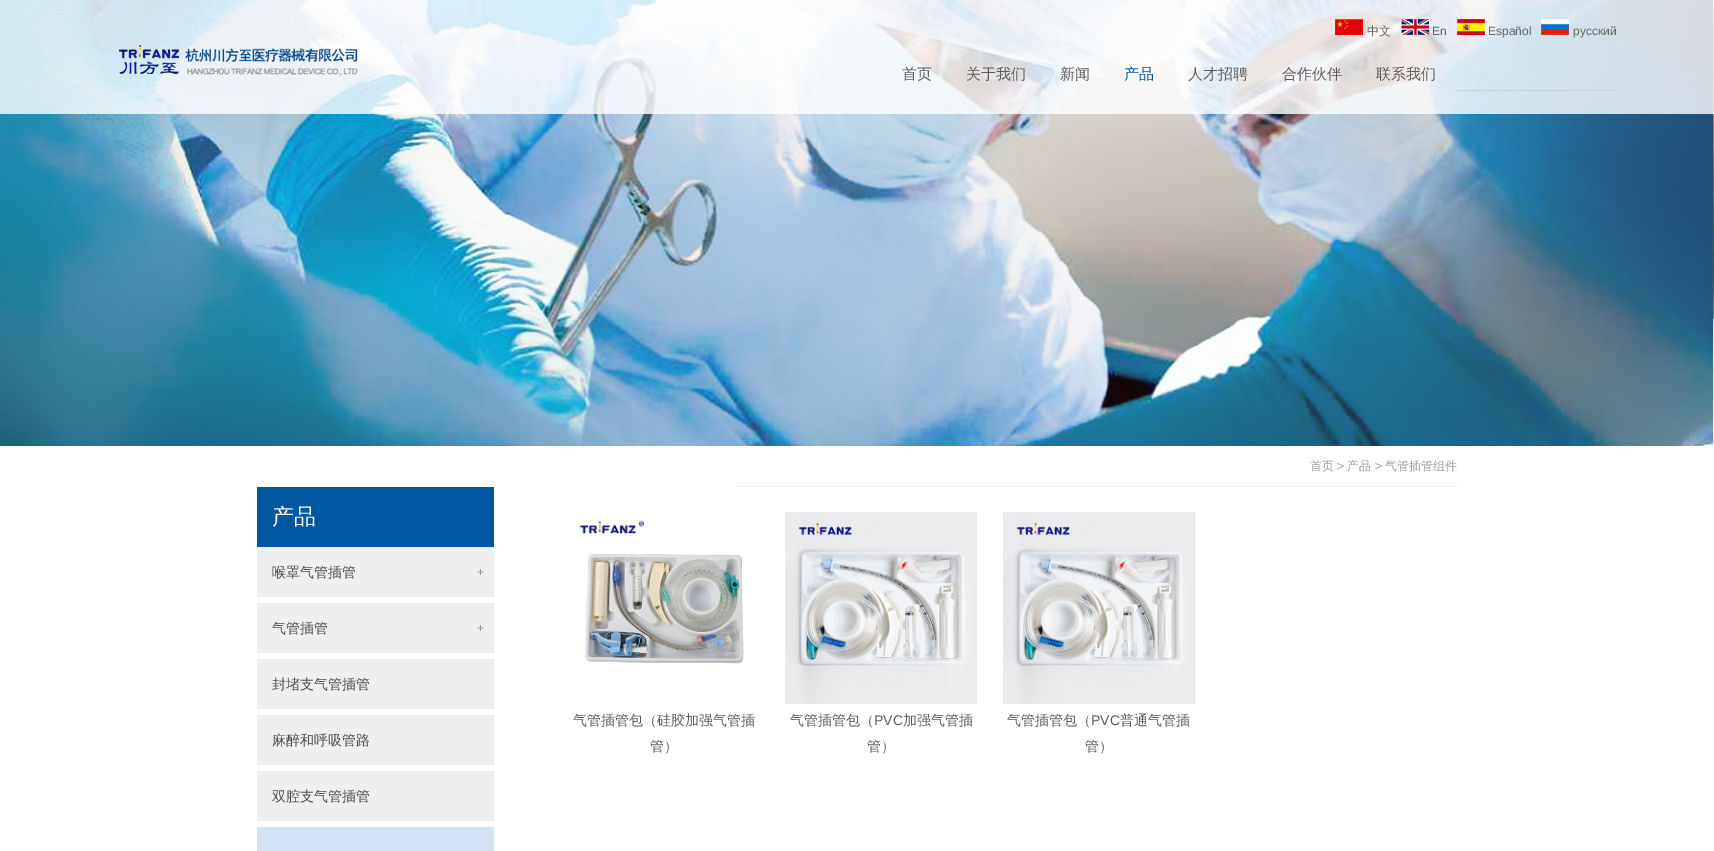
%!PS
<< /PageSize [1714 851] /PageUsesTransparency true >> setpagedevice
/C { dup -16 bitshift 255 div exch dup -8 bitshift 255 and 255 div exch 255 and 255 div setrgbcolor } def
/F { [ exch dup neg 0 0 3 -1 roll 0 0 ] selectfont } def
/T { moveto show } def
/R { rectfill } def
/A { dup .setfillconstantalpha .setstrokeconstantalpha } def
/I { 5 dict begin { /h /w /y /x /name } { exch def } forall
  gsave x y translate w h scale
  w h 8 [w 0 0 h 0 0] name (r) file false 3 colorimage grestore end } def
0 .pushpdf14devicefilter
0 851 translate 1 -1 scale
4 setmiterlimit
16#FFFFFF C
0 0 1714 851 R
(1.rgb) 0 0 1714 446 I
0.8 A
0 0 1714 114 R
1 A
(2.rgb) 119 45 239 31 I
(3.rgb) 1335 19 28 16 I
/WenQuanYiZenHei-Medium 12 F
16#666666 C
(中文) 1367 35 T
(4.rgb) 1401 19 28 16 I
/LiberationSans-Regular 12 F
(En) 1432 35 T
(5.rgb) 1457 19 28 16 I
(Español) 1488 35 T
(6.rgb) 1541 19 28 16 I
(русский) 1573 35 T
/WenQuanYiZenHei-Medium 15 F
16#5D5D5D C
(首页) 902 79 T
(关于我们) 966 79 T
(新闻) 1060 79 T
16#00549D C
(产品) 1124 79 T
16#5D5D5D C
(人才招聘) 1188 79 T
(合作伙伴) 1282 79 T
(联系我们) 1376 79 T
16#CECECE C
1456 90 160 1 R
16#EFEFEF C
737 486 720 1 R
/WenQuanYiZenHei-Medium 12 F
16#9E9E9E C
(首页) 1310 470 T
/LiberationSans-Regular 12 F
16#989898 C
(>) 1337 470 T
/WenQuanYiZenHei-Medium 12 F
16#9E9E9E C
(产品) 1347 470 T
/LiberationSans-Regular 12 F
16#989898 C
(>) 1375 470 T
/WenQuanYiZenHei-Medium 12 F
16#9E9E9E C
(气管插管组件) 1385 470 T
16#00569F C
257 487 237 60 R
/WenQuanYiZenHei-Medium 22 F
16#FFFFFF C
(产品) 272 524 T
16#EFEFEF C
257 547 237 50 R
/WenQuanYiZenHei-Medium 14 F
16#4D4D4D C
(喉罩气管插管) 272 577 T
/LiberationSans-Regular 12 F
16#989898 C
(+) 477 576 T
16#EFEFEF C
257 603 237 50 R
/WenQuanYiZenHei-Medium 14 F
16#4D4D4D C
(气管插管) 272 633 T
/LiberationSans-Regular 12 F
16#989898 C
(+) 477 632 T
16#EFEFEF C
257 659 237 50 R
/WenQuanYiZenHei-Medium 14 F
16#4D4D4D C
(封堵支气管插管) 272 689 T
16#EFEFEF C
257 715 237 50 R
16#4D4D4D C
(麻醉和呼吸管路) 272 745 T
16#EFEFEF C
257 771 237 50 R
16#4D4D4D C
(双腔支气管插管) 272 801 T
16#D3E3F3 C
257 827 237 24 R
(7.rgb) 579 520 165 144 I
16#5D5D5D C
(气管插管包（硅胶加强气管插) 573 725 T
(管）) 650 751 T
(8.rgb) 785 512 192 192 I
(气管插管包（) 790 725 T
/LiberationSans-Regular 14 F
(PVC) 874 725 T
/WenQuanYiZenHei-Medium 14 F
(加强气管插) 903 725 T
(管）) 867 751 T
(8.rgb) 1003 512 192 192 I
(气管插管包（) 1007 725 T
/LiberationSans-Regular 14 F
(PVC) 1091 725 T
/WenQuanYiZenHei-Medium 14 F
(普通气管插) 1120 725 T
(管）) 1085 751 T
.poppdf14devicefilter showpage
